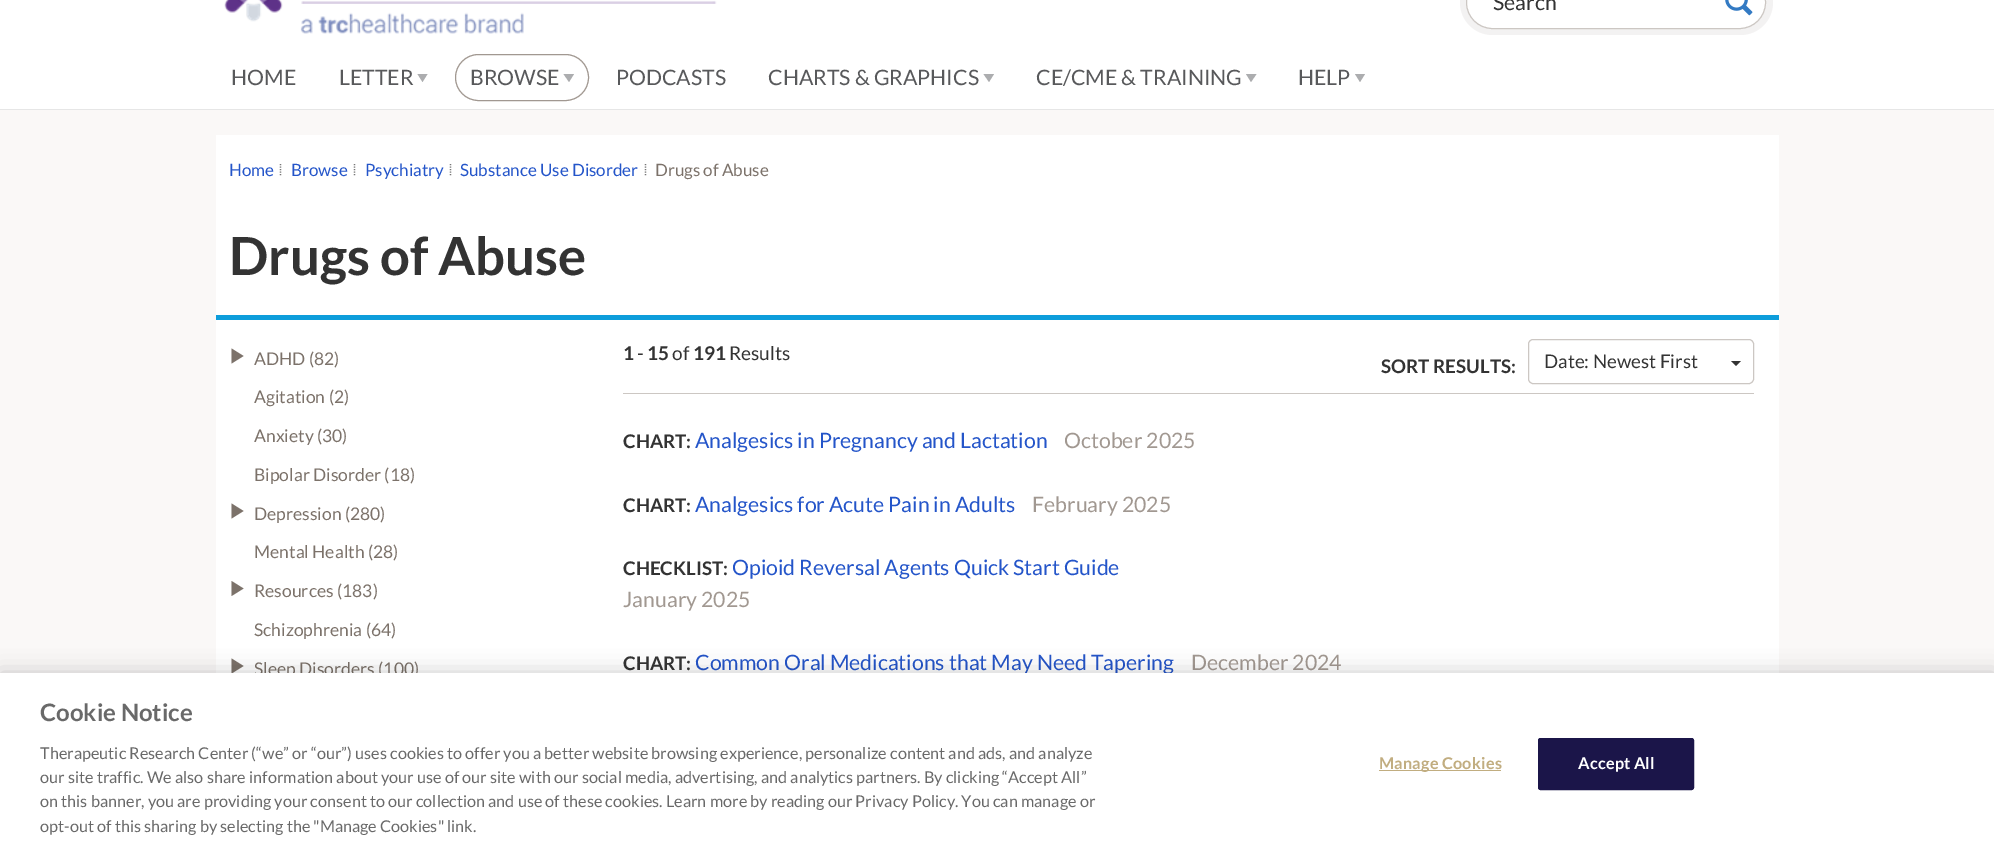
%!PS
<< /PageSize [1994 851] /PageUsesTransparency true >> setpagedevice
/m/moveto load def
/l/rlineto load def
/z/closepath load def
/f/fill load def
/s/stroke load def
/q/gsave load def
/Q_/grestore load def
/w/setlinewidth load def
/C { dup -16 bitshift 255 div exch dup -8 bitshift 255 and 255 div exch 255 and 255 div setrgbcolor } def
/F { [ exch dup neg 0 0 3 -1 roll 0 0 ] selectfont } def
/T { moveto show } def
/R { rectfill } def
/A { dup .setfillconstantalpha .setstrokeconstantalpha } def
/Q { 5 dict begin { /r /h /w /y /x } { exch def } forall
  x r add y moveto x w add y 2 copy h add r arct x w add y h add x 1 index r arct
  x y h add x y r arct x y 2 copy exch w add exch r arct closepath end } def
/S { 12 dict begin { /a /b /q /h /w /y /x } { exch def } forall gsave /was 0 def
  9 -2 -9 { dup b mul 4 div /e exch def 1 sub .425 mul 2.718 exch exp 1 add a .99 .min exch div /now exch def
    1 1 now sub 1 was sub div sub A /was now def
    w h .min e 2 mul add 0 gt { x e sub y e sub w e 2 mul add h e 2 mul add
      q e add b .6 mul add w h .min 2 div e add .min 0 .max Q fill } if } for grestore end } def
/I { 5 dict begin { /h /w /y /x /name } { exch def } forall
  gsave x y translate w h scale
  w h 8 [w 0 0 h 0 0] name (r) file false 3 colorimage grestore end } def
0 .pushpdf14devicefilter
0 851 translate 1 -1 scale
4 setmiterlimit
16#FAF8F7 C
0 0 1994 851 R
16#FFFFFF C
0 0 1994 109 R
16#E6E6E6 C
0 109 1994 1 R
(1.rgb) 224 0 493 34 I
16#F3F2F2 C
1460 -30 313 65 32.5 Q f
16#FFFFFF C
1466.5 -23.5 299 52 26 Q q f Q_
16#CCC7C3 C
s
/Lato-Regular 21.25 F
16#333333 C
(Search) 1493 10 T
(2.rgb) 1725 0 28 16 I
16#58595B C
(HOME) 231 85 T
(LETTER) 339 85 T
16#ACADAF C
417.5 74 m 10 0 l -5 8 l z f
16#A19891 C
455.5 54.5 133 46 23 Q s
16#58595B C
(BROWSE) 470 85 T
16#ACADAF C
563.5 74 m 10.5 0 l -5 8 l z f
16#58595B C
(PODCASTS) 616 85 T
(CHARTS & GRAPHICS) 768 85 T
16#ACADAF C
983.5 74 m 10.5 0 l -5 8 l z f
16#58595B C
(CE/CME & TRAINING) 1036 85 T
16#ACADAF C
1246 74 m 10.5 0 l -5.5 8 l z f
16#58595B C
(HELP) 1298 85 T
16#ACADAF C
1355 74 m 10 0 l -5 8 l z f
16#FFFFFF C
216 135 1563 180 R
16#0D9DDB C
216 315 1563 5 R
/Lato-Regular 17 F
16#2455C9 C
(Home) 229 176 T
16#777777 C
1.2 w
[1.25 1.25] 0 setdash
280.5 164 m 0 12 l s
16#2455C9 C
(Browse) 291 176 T
16#777777 C
354.5 164 m 0 12 l s
16#2455C9 C
(Psychiatry) 365 176 T
16#777777 C
450.5 164 m 0 12 l s
16#2455C9 C
(Substance Use Disorder) 460 176 T
16#777777 C
645.5 164 m 0 12 l s
16#7C726A C
(Drugs of Abuse) 655 176 T
/Lato-Bold 52.5 F
16#333333 C
(Drugs of Abuse) 229 275 T
16#FFFFFF C
216 320 1563 353 R
16#7C726A C
231.5 363.5 m 0 -15 l 12 7.5 l z f
/Lato-Regular 17.5 F
(ADHD \(82\)) 254 365 T
(Agitation \(2\)) 254 403 T
(Anxiety \(30\)) 254 442 T
(Bipolar Disorder \(18\)) 254 481 T
231.5 518.5 m 0 -15 l 12 7.5 l z f
(Depression \(280\)) 254 520 T
(Mental Health \(28\)) 254 558 T
231.5 596 m 0 -15 l 12 7.5 l z f
(Resources \(183\)) 254 597 T
(Schizophrenia \(64\)) 254 636 T
231.5 673.5 m 0 -15 l 12 7.5 l z f
(Sleep Disorders \(100\)) 254 675 T
/Lato-Bold 19 F
16#333333 C
(1) 623 360 T
/Lato-Regular 19 F
(-) 637 360 T
/Lato-Bold 19 F
(15) 647 360 T
/Lato-Regular 19 F
(of) 672 360 T
/Lato-Bold 19 F
(191) 693 360 T
/Lato-Regular 19 F
(Results) 729 360 T
/Lato-Bold 18.75 F
(SORT RESULTS:) 1381 373 T
16#CCC7C3 C
1 w
[] 0 setdash
1528.5 339.5 225 44 4.5 Q s
/Lato-Regular 18.75 F
16#333333 C
(Date: Newest First) 1544 368 T
1731 361 m 10 0 l -5 5 l z f
16#CCC7C3 C
623 393 1131 1 R
/Lato-Bold 18.75 F
16#333333 C
(CHART:) 623 448 T
/Lato-Regular 21.25 F
16#2455C9 C
(Analgesics in Pregnancy and Lactation) 695 448 T
16#A19891 C
(October 2025) 1064 448 T
/Lato-Bold 18.75 F
16#333333 C
(CHART:) 623 512 T
/Lato-Regular 21.25 F
16#2455C9 C
(Analgesics for Acute Pain in Adults) 695 512 T
16#A19891 C
(February 2025) 1032 512 T
/Lato-Bold 18.75 F
16#333333 C
(CHECKLIST:) 623 575 T
/Lato-Regular 21.25 F
16#2455C9 C
(Opioid Reversal Agents Quick Start Guide) 732 575 T
16#A19891 C
(January 2025) 623 607 T
/Lato-Bold 18.75 F
16#333333 C
(CHART:) 623 670 T
/Lato-Regular 21.25 F
16#2455C9 C
(Common Oral Medications that May Need Tapering) 695 670 T
16#A19891 C
(December 2024) 1191 670 T
16#000000 C
0 673 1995 178 0 11 .2 S
16#FFFFFF C
0 673 1994 178 R
/Lato-Bold 24 F
16#696969 C
(Cookie Notice) 40 721 T
/Lato-Regular 16.25 F
(Therapeutic Research Center \(“we” or “our”\) uses cookies to offer you a better website browsing experience, personalize content and ads, and analyze) 40 759 T
(our site traffic. We also share information about your use of our site with our social media, advertising, and analytics partners. By clicking “Accept All”) 40 783 T
(on this banner, you are providing your consent to our collection and use of these cookies. Learn more by reading our Privacy Policy. You can manage or) 40 807 T
(opt-out of this sharing by selecting the "Manage Cookies" link.) 40 832 T
16#C1AD80 C
1379 770 122 1 R
/Lato-Bold 16.25 F
1379 769 m .2 0 (Manage Cookies) ashow
16#1B1549 C
1538.5 738.5 155 51 2 Q q f Q_
s
16#FFFFFF C
1578 769 m .2 0 (Accept All) ashow
.poppdf14devicefilter showpage
